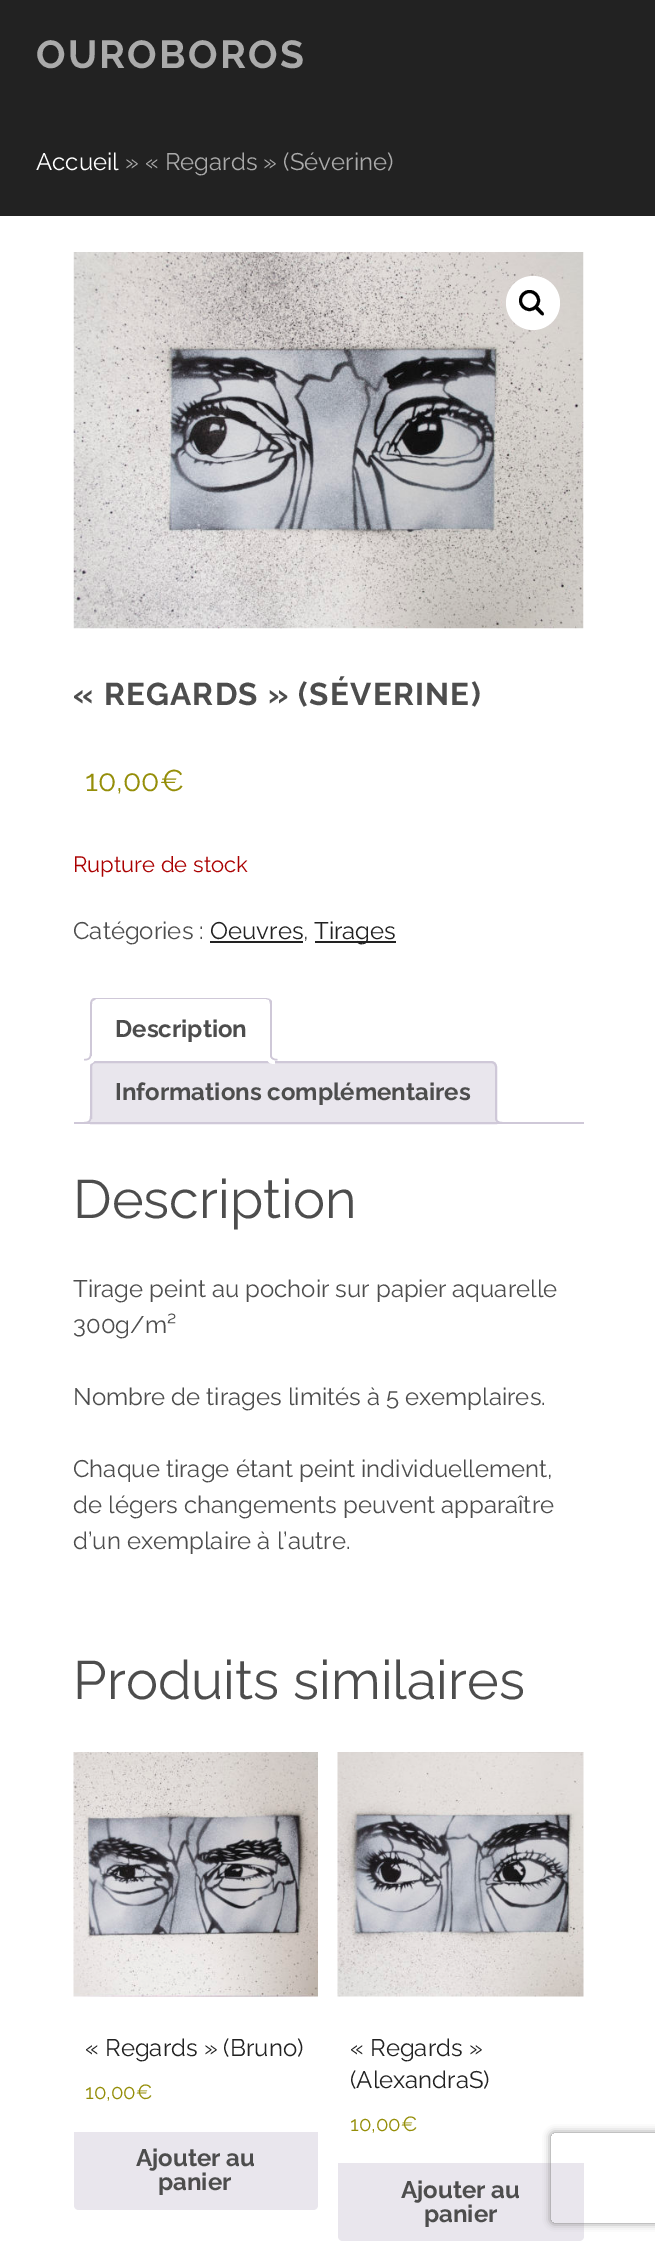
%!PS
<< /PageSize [655 2244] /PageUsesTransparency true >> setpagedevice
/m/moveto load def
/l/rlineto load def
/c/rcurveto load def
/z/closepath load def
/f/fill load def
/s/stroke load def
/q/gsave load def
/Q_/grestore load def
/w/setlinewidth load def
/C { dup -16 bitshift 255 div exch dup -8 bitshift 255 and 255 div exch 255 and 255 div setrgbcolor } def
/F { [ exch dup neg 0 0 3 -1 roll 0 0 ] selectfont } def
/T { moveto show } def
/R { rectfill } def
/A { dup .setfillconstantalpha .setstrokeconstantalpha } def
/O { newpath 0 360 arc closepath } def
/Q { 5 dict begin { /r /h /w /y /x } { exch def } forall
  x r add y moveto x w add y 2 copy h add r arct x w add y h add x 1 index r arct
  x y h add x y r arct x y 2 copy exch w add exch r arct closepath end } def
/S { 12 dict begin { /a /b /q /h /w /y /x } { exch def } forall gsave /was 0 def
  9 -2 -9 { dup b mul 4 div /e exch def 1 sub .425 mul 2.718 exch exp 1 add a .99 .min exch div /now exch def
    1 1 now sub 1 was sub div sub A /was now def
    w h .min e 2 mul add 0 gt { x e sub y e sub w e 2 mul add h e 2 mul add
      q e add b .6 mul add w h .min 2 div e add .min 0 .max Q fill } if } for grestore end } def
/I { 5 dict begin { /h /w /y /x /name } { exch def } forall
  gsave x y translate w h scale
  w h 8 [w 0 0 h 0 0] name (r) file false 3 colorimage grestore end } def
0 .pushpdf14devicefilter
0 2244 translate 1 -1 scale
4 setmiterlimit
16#222222 C
0 0 655 2244 R
/Raleway-Bold 39 F
16#AAAAAA C
36 68 m 2.25 0 (OUROBOROS) ashow
/Raleway-Regular 24 F
16#FFFFFF C
(Accueil) 36 170 T
16#AAAAAA C
(» « Regards » \(Séverine\)) 125 170 T
16#FFFFFF C
0 216 655 2028 R
(1.rgb) 73 252 511 377 I
533 303 27 O f
16#000000 C
3 w
529.5 300.5 9 O s
535 306.5 m 1.5 -2 4.5 2 5.5 3 c .5 1 4.5 3.5 3 5.5 c -1.5 1.5 -4.5 -2.5 -5.5 -3.5 c -.5 -.5 -4.5 -3.5 -3 -5 c z f
/Raleway-Bold 31.5 F
16#4D4D4D C
73 705 m 1.25 0 (« REGARDS » \(SÉVERINE\)) ashow
/Raleway-Regular 30 F
16#958E09 C
(10,00€) 85 791 T
/Raleway-Regular 22 F
16#AA0000 C
(Rupture de stock) 73 872 T
/Raleway-Regular 24 F
16#4D4D4D C
(Catégories :) 73 939 T
16#222222 C
(Oeuvres) 210 939 T
16#4D4D4D C
(,) 303 939 T
16#222222 C
210 941 93 2 R
315 941 81 2 R
(Tirages) 314 939 T
16#CFC8D8 C
96 998 m -1 0 -3 0 -4 1 c 1 2 l 3 -2 l 170 0 l 3 1 l 1 -1 l -4 -1 l z f
270 999 m 2 2 l 0 59 l -2 -1 l 0 -55 l 0 -2 -1 -3 -1 -4 c z f
16#FFFFFF C
271 1060 m -181 0 l 2 -2 l 0 1 l 178 0 l z f
16#CFC8D8 C
90 1004 m 0 56 l 2 -2 l 0 -54 l 0 -1 0 -3 1 -3 c -1 -2 l -1 1 -2 3 -2 5 c z f
/Raleway-Bold 24 F
16#4D4D4D C
(Description) 115 1037 T
16#E9E6ED C
96 1062 m 395 0 l 3 0 5 2 5 5 c 0 56 l -405 0 l 0 -56 l 0 -3 2 -5 5 -5 c z q f Q_
16#CFC8D8 C
2 w
s
16#FFFFFF C
87 1060.5 m 0 3.5 l 6 0 8 -2 8 -8 c -3.5 0 l -.5 2 -2.5 4 -4.5 4.5 c z f
16#CFC8D8 C
84 1053 m 7.5 0 l 0 5.5 -2 7.5 -7.5 7.5 c z 84 1053 m 6 0 l 0 4.5 -1.5 6 -6 6 c z eofill
16#FFFFFF C
267 1056 m 0 6 2 8 8 8 c 0 -3.5 l -2.5 -.5 -4 -2 -5 -4.5 c z f
16#CFC8D8 C
270 1053 m 7.5 0 l 0 7.5 l -4 0 -7.5 -1.5 -7.5 -6 c z 271.5 1053 m 6 0 l 0 6 l -3 0 -6 -1 -6 -4.5 c z eofill
16#4D4D4D C
(Informations complémentaires) 115 1100 T
q
74 998 510 126 rectclip
16#E9E6ED C
87 1123.5 m 0 3.5 l 6 0 8 -2 8 -8 c -3.5 0 l -.5 2 -2.5 4 -4.5 4.5 c z f
Q_
16#CFC8D8 C
84 1116 m 7.5 0 l 0 5.5 -2 7.5 -7.5 7.5 c z 84 1116 m 6 0 l 0 4.5 -1.5 6 -6 6 c z eofill
q
74 998 510 126 rectclip
16#E9E6ED C
492 1119 m 0 6 2 8 8 8 c 0 -3.5 l -2.5 -.5 -4 -2 -5 -4.5 c z f
Q_
495 1116 m 7.5 0 l 0 7.5 l -4 0 -7.5 -1.5 -7.5 -6 c z 496.5 1116 m 6 0 l 0 6 l -3 0 -6 -1 -6 -4.5 c z eofill
74 1122 510 2 R
/Raleway-Regular 54 F
16#4D4D4D C
(Description) 73 1218 T
/Raleway-Regular 24 F
(Tirage peint au pochoir sur papier aquarelle) 73 1297 T
(300g/m²) 73 1333 T
(Nombre de tirages limités à 5 exemplaires.) 73 1405 T
(Chaque tirage étant peint individuellement,) 73 1477 T
(de légers changements peuvent apparaître) 73 1513 T
(d’un exemplaire à l’autre.) 73 1549 T
/Raleway-Regular 54 F
(Produits similaires) 73 1699 T
(2.rgb) 73 1752 245 245 I
/Raleway-Regular 24 F
16#222222 C
(« Regards » \(Bruno\)) 85 2056 T
/Raleway-Regular 20.5 F
16#958E09 C
(10,00€) 85 2099 T
16#E9E6ED C
74 2132 m 244 0 l 0 73 l 0 3 -2 5 -5 5 c -234 0 l -3 0 -5 -2 -5 -5 c z f
/Raleway-Bold 24 F
16#4D4D4D C
(Ajouter au) 136 2166 T
(panier) 158 2190 T
(3.rgb) 337 1752 247 245 I
/Raleway-Regular 24 F
16#222222 C
(« Regards ») 350 2056 T
(\(AlexandraS\)) 350 2088 T
/Raleway-Regular 20.5 F
16#958E09 C
(10,00€) 350 2131 T
16#E9E6ED C
338 2163 m 246 0 l 0 73 l 0 3 -2 5 -5 5 c -236 0 l -3 0 -5 -2 -5 -5 c z f
/Raleway-Bold 24 F
16#4D4D4D C
(Ajouter au) 401 2198 T
(panier) 424 2222 T
q
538 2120 m 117 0 l 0 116 l -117 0 l z 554 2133 m 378 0 l 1.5 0 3 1.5 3 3 c 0 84 l 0 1.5 -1.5 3 -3 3 c -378 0 l -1.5 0 -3 -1.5 -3 -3 c 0 -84 l 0 -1.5 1.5 -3 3 -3 c z eoclip newpath
16#808080 C
551 2133 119 90 3 4 1 S
Q_
.poppdf14devicefilter showpage
